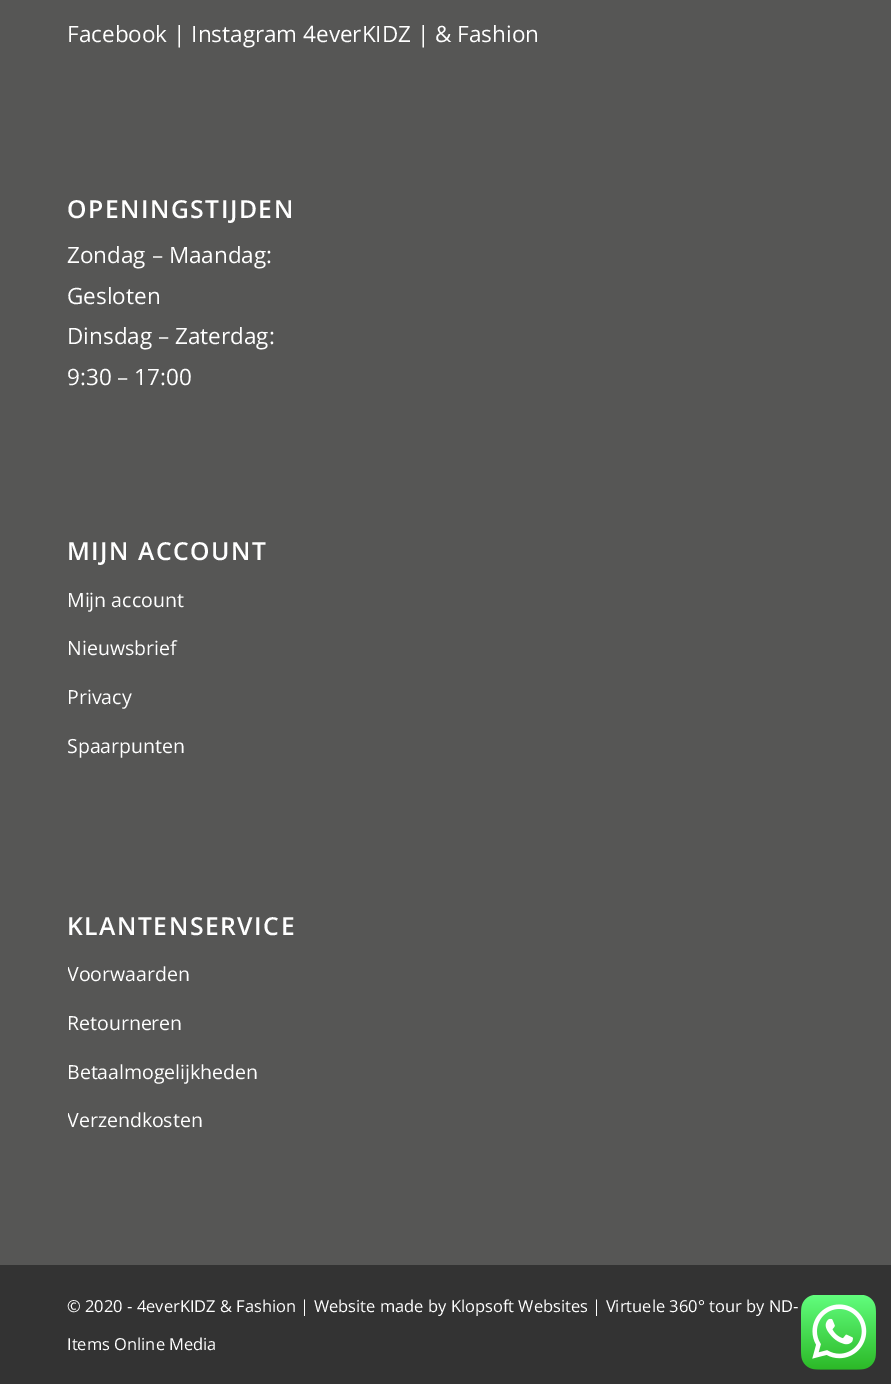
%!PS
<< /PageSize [891 1384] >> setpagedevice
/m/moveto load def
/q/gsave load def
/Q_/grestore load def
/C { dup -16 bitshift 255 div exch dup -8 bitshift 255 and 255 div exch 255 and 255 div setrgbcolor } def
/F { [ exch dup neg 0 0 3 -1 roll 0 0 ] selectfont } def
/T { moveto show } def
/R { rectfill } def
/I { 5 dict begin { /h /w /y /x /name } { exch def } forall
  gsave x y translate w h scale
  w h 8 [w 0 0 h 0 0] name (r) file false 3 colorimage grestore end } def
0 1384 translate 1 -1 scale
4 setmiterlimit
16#565655 C
0 0 891 1384 R
/OpenSans-Regular 22.5 F
16#FFFFFF C
(Facebook | Instagram 4everKIDZ | & Fashion) 67 42 T
/OpenSans-SemiBold 24.75 F
67 218 m 1.5 0 (OPENINGSTIJDEN) ashow
/OpenSans-Regular 22.5 F
(Zondag – Maandag:) 67 263 T
(Gesloten) 67 304 T
(Dinsdag – Zaterdag:) 67 344 T
(9:30 – 17:00) 67 385 T
/OpenSans-SemiBold 24.75 F
67 560 m 1.5 0 (MIJN ACCOUNT) ashow
/OpenSans-Regular 19.5 F
(Mijn account) 67 607 T
(Nieuwsbrief) 67 655 T
(Privacy) 67 704 T
(Spaarpunten) 67 753 T
/OpenSans-SemiBold 24.75 F
67 935 m 1.5 0 (KLANTENSERVICE) ashow
q
68 891 756 255 rectclip
/OpenSans-Regular 19.5 F
(Voorwaarden) 67 981 T
Q_
/OpenSans-Regular 19.5 F
(Retourneren) 67 1030 T
(Betaalmogelijkheden) 67 1079 T
q
68 891 756 255 rectclip
(Verzendkosten) 67 1127 T
Q_
16#333333 C
0 1265 891 119 R
/OpenSans-Regular 16.5 F
16#FFFFFF C
(© 2020 - 4everKIDZ & Fashion | Website made by Klopsoft Websites | Virtuele 360° tour by ND-) 67 1312 T
(Items Online Media) 67 1350 T
(1.rgb) 801 1295 75 75 I
showpage
